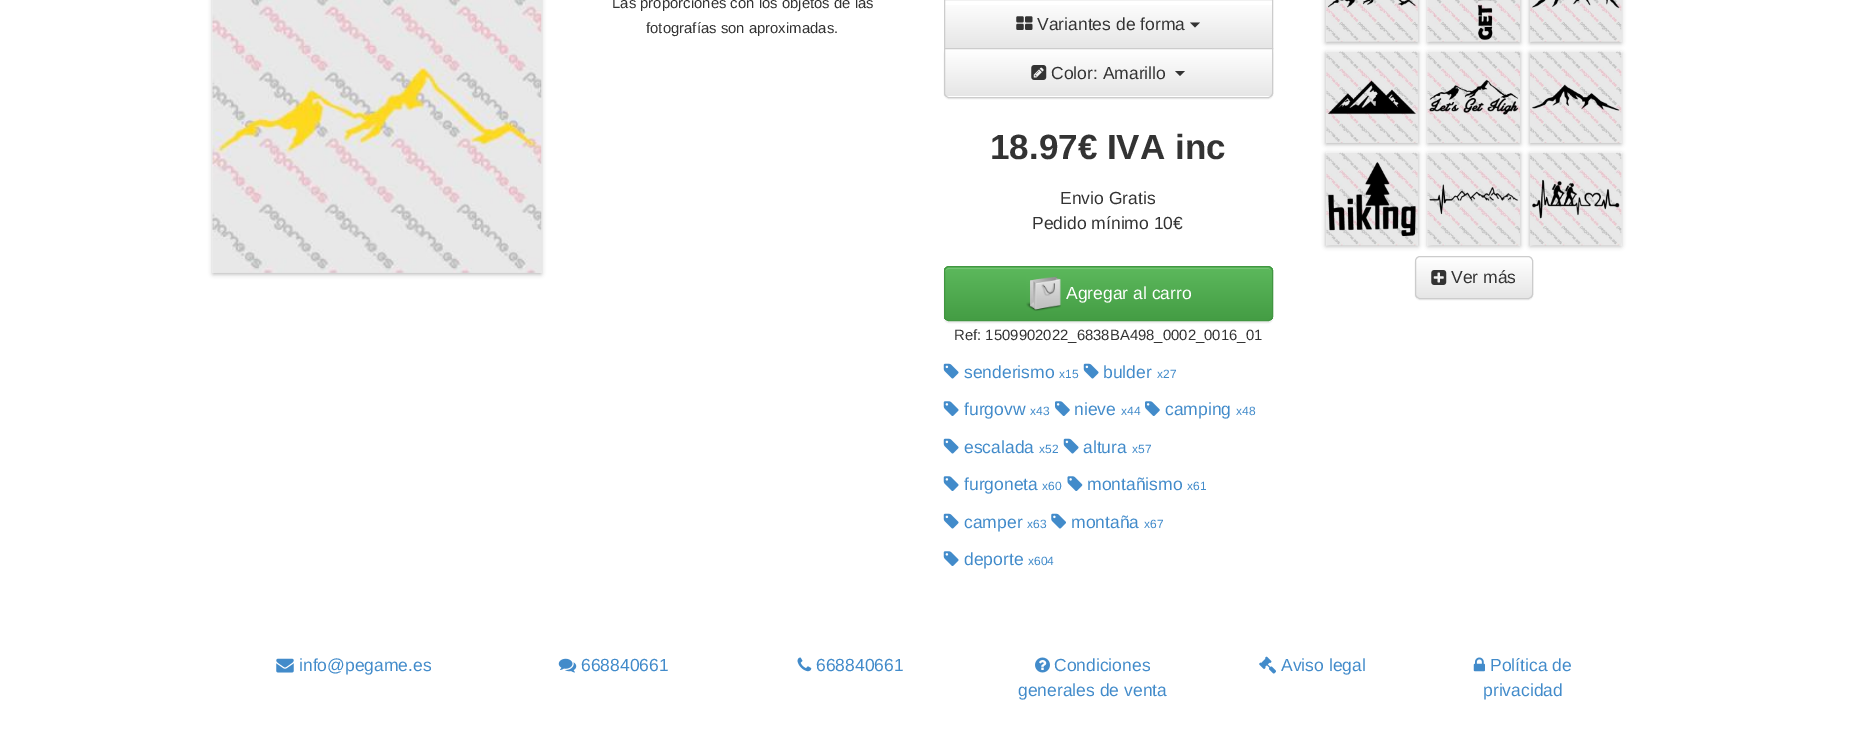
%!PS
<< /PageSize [1849 750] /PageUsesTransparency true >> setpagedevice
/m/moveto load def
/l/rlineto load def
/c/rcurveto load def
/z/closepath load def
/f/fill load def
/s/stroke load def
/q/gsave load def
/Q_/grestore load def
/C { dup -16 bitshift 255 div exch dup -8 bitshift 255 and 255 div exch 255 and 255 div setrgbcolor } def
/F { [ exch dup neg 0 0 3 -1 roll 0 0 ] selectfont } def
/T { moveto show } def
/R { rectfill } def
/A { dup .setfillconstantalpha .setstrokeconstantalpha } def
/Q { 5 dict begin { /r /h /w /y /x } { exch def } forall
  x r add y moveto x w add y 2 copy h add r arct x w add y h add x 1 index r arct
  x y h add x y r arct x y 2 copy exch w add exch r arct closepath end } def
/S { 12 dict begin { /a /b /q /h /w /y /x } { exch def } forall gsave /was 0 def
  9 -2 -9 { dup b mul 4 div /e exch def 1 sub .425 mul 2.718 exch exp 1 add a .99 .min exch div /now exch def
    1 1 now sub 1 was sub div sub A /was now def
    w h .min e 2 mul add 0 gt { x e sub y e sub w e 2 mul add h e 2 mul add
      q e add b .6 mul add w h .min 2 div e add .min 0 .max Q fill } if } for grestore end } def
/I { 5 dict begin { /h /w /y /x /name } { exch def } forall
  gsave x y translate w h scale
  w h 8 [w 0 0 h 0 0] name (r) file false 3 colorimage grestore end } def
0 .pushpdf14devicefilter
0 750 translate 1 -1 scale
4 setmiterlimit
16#FFFFFF C
0 0 1849 750 R
16#000000 C
213 -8 328 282 0 2.5 .3 S
(1.rgb) 212 0 330 273 I
/LiberationSans-Regular 14.9 F
16#333333 C
(Las proporciones con los objetos de las) 612 8 T
(fotografías son aproximadas.) 646 33 T
q 945 5 m 327 0 l 0 43 l -327 0 l z clip newpath
<< /ShadingType 2 /ColorSpace /DeviceRGB /Coords [1108 0 1108 48] /Extend [true true] /Function << /FunctionType 2 /Domain [0 1] /C0 [1 1 1] /C1 [.902 .902 .902] /N 1 >> >> shfill Q_
16#CCCCCC C
944.5 -.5 328 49 rectstroke
(2.rgb) 1016 16 17 14 I
/LiberationSans-Regular 17.5 F
16#333333 C
(Variantes de forma) 1037 30 T
1190 22.5 m 10 0 l -5 5 l z f
16#000000 C
944 49 329 50 5 .5 .07 S
16#FFFFFF C
944 48 m 329 0 l 0 45 l 0 3 -2 5 -5 5 c -319 0 l -3 0 -5 -2 -5 -5 c z f
q
944 48 m 329 0 l 0 45 l 0 3 -2 5 -5 5 c -319 0 l -3 0 -5 -2 -5 -5 c z clip newpath
q 944 49 m 329 0 l 0 47 l -329 0 l z clip newpath
<< /ShadingType 2 /ColorSpace /DeviceRGB /Coords [1108 49 1108 96] /Extend [true true] /Function << /FunctionType 2 /Domain [0 1] /C0 [1 1 1] /C1 [.902 .902 .902] /N 1 >> >> shfill Q_
Q_
16#CCCCCC C
944.5 48.5 m 328 0 l 0 44.5 l 0 2.5 -2 4.5 -4.5 4.5 c -319 0 l -2.5 0 -4.5 -2 -4.5 -4.5 c z s
(3.rgb) 1031 65 16 15 I
16#333333 C
(Color: Amarillo) 1051 79 T
1175 71 m 10 0 l -5 5 l z f
/LiberationSans-Bold 35 F
(18.97€ IVA inc) 990 159 T
/LiberationSans-Regular 17.5 F
(Envio Gratis) 1060 204 T
(Pedido mínimo 10€) 1032 229 T
16#000000 C
944 268 329 55 5 .5 .07 S
16#5CB85C C
944 266 329 55 5 Q f
q
944 266 329 55 5 Q clip newpath
q 944 268 m 329 0 l 0 52 l -329 0 l z clip newpath
<< /ShadingType 2 /ColorSpace /DeviceRGB /Coords [1108 268 1108 320] /Extend [true true] /Function << /FunctionType 2 /Domain [0 1] /C0 [.361 .722 .361] /C1 [.267 .616 .267] /N 1 >> >> shfill Q_
Q_
16#74C374 C
949 269 m 320 0 l 1 1 l 0 -1 -2 -2 -3 -2 c -318 0 l -2 0 -4 2 -4 4 c 0 -2 2 -3 4 -3 c z f
16#419641 C
944.5 266.5 328 54 4.5 Q s
(4.rgb) 1026 276 35 35 I
16#FFFFFF C
(Agregar al carro) 1066 299 T
/LiberationSans-Regular 14.9 F
16#333333 C
(Ref: 1509902022_6838BA498_0002_0016_01) 954 340 T
(5.rgb) 943 363 16 16 I
/LiberationSans-Regular 17.5 F
16#428BCA C
(senderismo) 964 378 T
/LiberationSans-Regular 12 F
(x15) 1059 378 T
(5.rgb) 1083 363 16 16 I
/LiberationSans-Regular 17.5 F
(bulder) 1103 378 T
/LiberationSans-Regular 12 F
(x27) 1157 378 T
(6.rgb) 943 401 16 15 I
/LiberationSans-Regular 17.5 F
(furgovw) 964 415 T
/LiberationSans-Regular 12 F
(x43) 1030 415 T
(7.rgb) 1055 401 15 15 I
/LiberationSans-Regular 17.5 F
(nieve) 1074 415 T
/LiberationSans-Regular 12 F
(x44) 1121 415 T
(7.rgb) 1145 401 15 15 I
/LiberationSans-Regular 17.5 F
(camping) 1165 415 T
/LiberationSans-Regular 12 F
(x48) 1236 415 T
(5.rgb) 943 438 16 16 I
/LiberationSans-Regular 17.5 F
(escalada) 964 453 T
/LiberationSans-Regular 12 F
(x52) 1039 453 T
(5.rgb) 1063 438 16 16 I
/LiberationSans-Regular 17.5 F
(altura) 1083 453 T
/LiberationSans-Regular 12 F
(x57) 1132 453 T
(6.rgb) 943 476 16 15 I
/LiberationSans-Regular 17.5 F
(furgoneta) 964 490 T
/LiberationSans-Regular 12 F
(x60) 1042 490 T
(8.rgb) 1067 476 16 15 I
/LiberationSans-Regular 17.5 F
(montañismo) 1087 490 T
/LiberationSans-Regular 12 F
(x61) 1187 490 T
(5.rgb) 943 513 16 16 I
/LiberationSans-Regular 17.5 F
(camper) 964 528 T
/LiberationSans-Regular 12 F
(x63) 1027 528 T
(9.rgb) 1051 513 15 16 I
/LiberationSans-Regular 17.5 F
(montaña) 1071 528 T
/LiberationSans-Regular 12 F
(x67) 1144 528 T
(6.rgb) 943 551 16 15 I
/LiberationSans-Regular 17.5 F
(deporte) 964 565 T
/LiberationSans-Regular 12 F
(x604) 1028 565 T
16#000000 C
1326 -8 92 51 0 2.5 .3 S
(10.rgb) 1326 0 92 42 I
1428 -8 92 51 0 2.5 .3 S
(11.rgb) 1427 0 93 42 I
1530 -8 91 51 0 2.5 .3 S
(12.rgb) 1530 0 92 42 I
1326 53 92 91 0 2.5 .3 S
1428 53 92 91 0 2.5 .3 S
1530 53 91 91 0 2.5 .3 S
(13.rgb) 1326 51 92 92 I
(14.rgb) 1427 51 93 92 I
(15.rgb) 1530 51 92 92 I
1326 154 92 92 0 2.5 .3 S
1428 154 92 92 0 2.5 .3 S
1530 154 91 92 0 2.5 .3 S
(16.rgb) 1326 152 92 94 I
(17.rgb) 1427 152 93 94 I
(18.rgb) 1530 152 92 94 I
1415 258 118 42 5 .5 .07 S
16#FFFFFF C
1415 256 118 43 5 Q f
q
1415 256 118 43 5 Q clip newpath
q 1415 258 m 118 0 l 0 40 l -118 0 l z clip newpath
<< /ShadingType 2 /ColorSpace /DeviceRGB /Coords [1474 258 1474 298] /Extend [true true] /Function << /FunctionType 2 /Domain [0 1] /C0 [1 1 1] /C1 [.902 .902 .902] /N 1 >> >> shfill Q_
Q_
16#CCCCCC C
1415.5 256.5 117 42 4.5 Q s
(19.rgb) 1431 270 16 15 I
/LiberationSans-Regular 17.5 F
16#333333 C
(Ver más) 1451 283 T
(20.rgb) 276 658 18 15 I
16#428BCA C
(info@pegame.es) 299 671 T
(21.rgb) 558 658 19 15 I
(668840661) 581 671 T
(22.rgb) 797 657 15 15 I
(668840661) 816 671 T
(23.rgb) 1035 657 15 16 I
(Condiciones) 1054 671 T
(generales de venta) 1018 696 T
(24.rgb) 1259 656 17 18 I
(Aviso legal) 1281 671 T
(25.rgb) 1473 657 12 15 I
(Política de) 1490 671 T
(privacidad) 1483 696 T
.poppdf14devicefilter showpage
